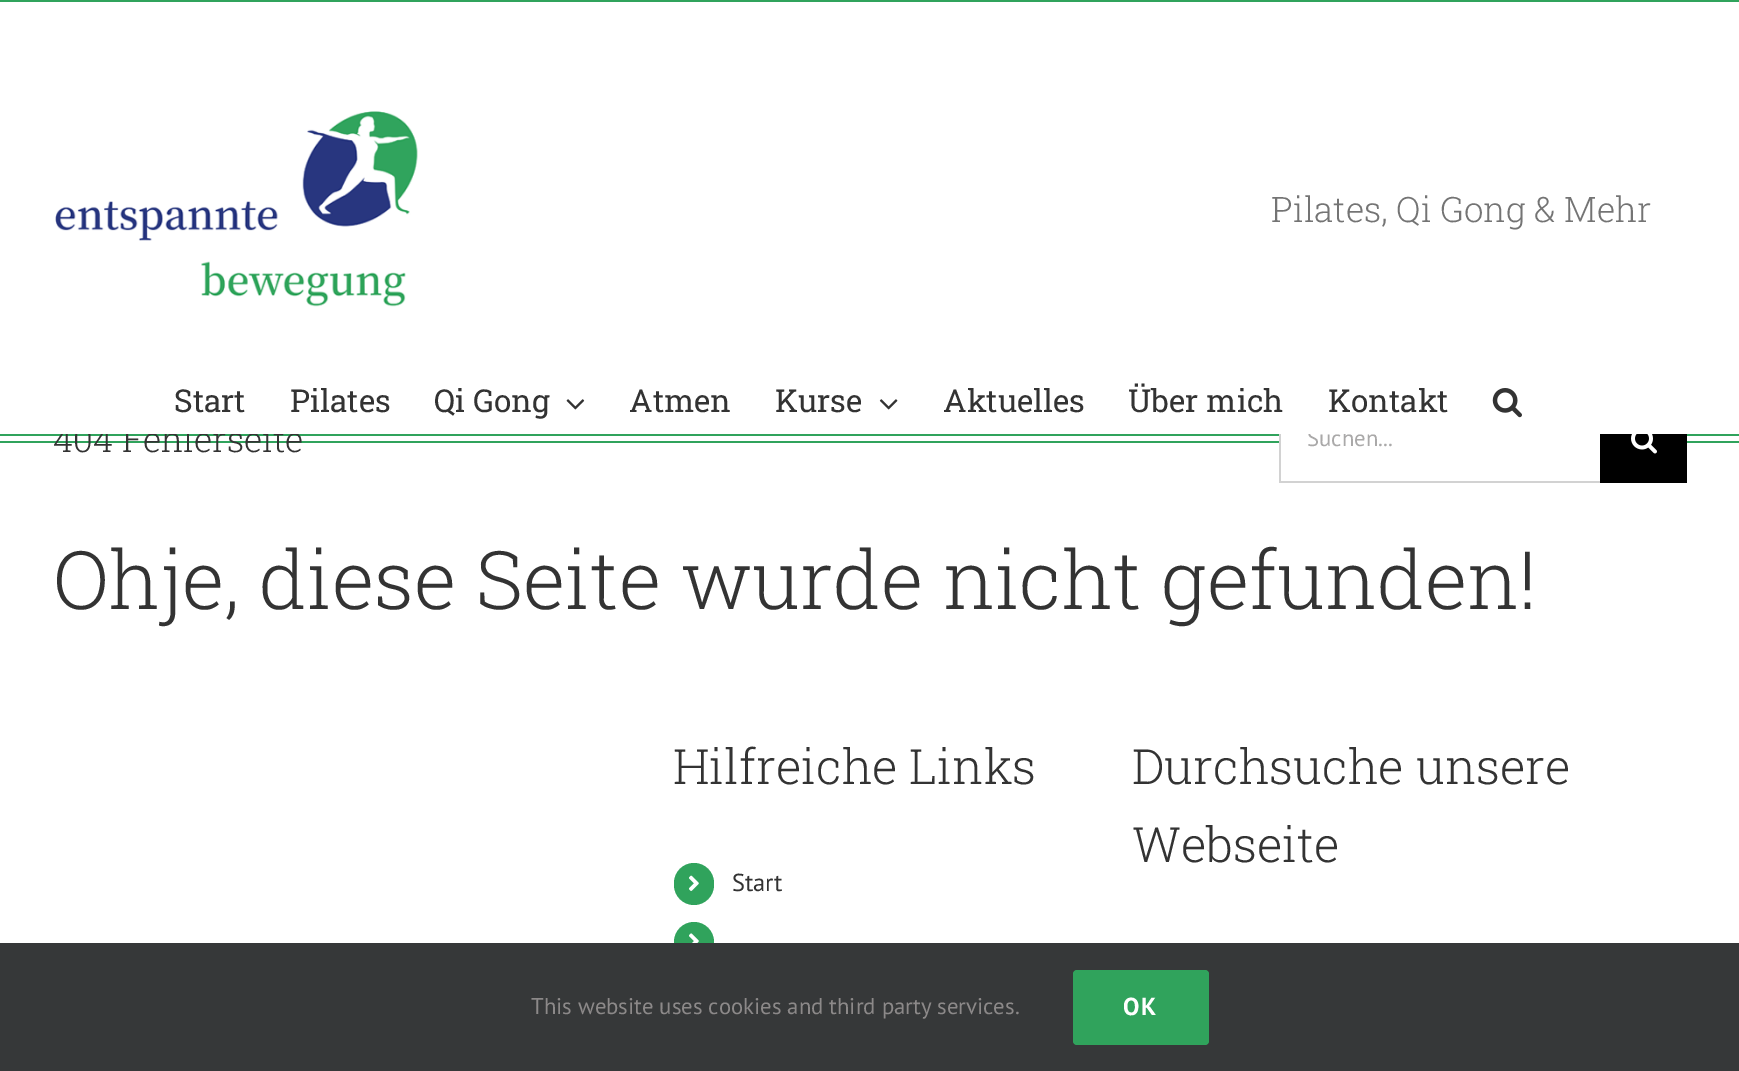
%!PS
<< /PageSize [1739 1071] >> setpagedevice
/m/moveto load def
/f/fill load def
/C { dup -16 bitshift 255 div exch dup -8 bitshift 255 and 255 div exch 255 and 255 div setrgbcolor } def
/F { [ exch dup neg 0 0 3 -1 roll 0 0 ] selectfont } def
/T { moveto show } def
/R { rectfill } def
/Q { 5 dict begin { /r /h /w /y /x } { exch def } forall
  x r add y moveto x w add y 2 copy h add r arct x w add y h add x 1 index r arct
  x y h add x y r arct x y 2 copy exch w add exch r arct closepath end } def
/I { 5 dict begin { /h /w /y /x /name } { exch def } forall
  gsave x y translate w h scale
  w h 8 [w 0 0 h 0 0] name (r) file false 3 colorimage grestore end } def
0 1071 translate 1 -1 scale
4 setmiterlimit
16#FFFFFF C
0 0 1739 1071 R
16#30A35C C
0 0 1739 2 R
(1.rgb) 55 111 363 196 I
/RobotoSlab-Light 35 F
16#747474 C
(Pilates, Qi Gong & Mehr) 1271 222 T
16#30A35C C
0 434 1739 2 R
0 441 1739 2 R
16#333333 C
(404 Fehlerseite) 53 452 T
16#FFFFFF C
1281 434 319 9 R
/PTSans-Regular 22.75 F
16#AAA9A9 C
(Suchen...) 1307 446 T
16#FFFFFF C
60 425 1286 9 R
/RobotoSlab-Regular 31.5 F
16#333333 C
(Start) 174 412 T
(Pilates) 290 412 T
(Qi Gong) 434 412 T
(2.rgb) 566 399 19 11 I
(Atmen) 629 412 T
(Kurse) 775 412 T
(3.rgb) 879 399 19 11 I
(Aktuelles) 943 412 T
(Über mich) 1128 412 T
(Kontakt) 1328 412 T
(4.rgb) 1492 388 30 30 I
16#D2D2D2 C
1279 481 321 2 R
1279 434 2 49 R
16#000000 C
1600 434 87 49 R
(5.rgb) 1631 434 26 20 I
/RobotoSlab-Light 80.75 F
16#333333 C
(Ohje, diese Seite wurde nicht gefunden!) 53 609 T
/RobotoSlab-Light 48.5 F
(Hilfreiche Links) 673 784 T
16#30A35C C
674 863 40 42 20 Q f
(6.rgb) 689 875 10 16 I
/PTSans-Regular 24.5 F
16#333333 C
(Start) 732 891 T
16#30A35C C
674 922 40 41 20 Q f
(7.rgb) 689 933 10 10 I
/RobotoSlab-Light 48.5 F
16#333333 C
(Durchsuche unsere) 1132 784 T
(Webseite) 1132 862 T
16#363839 C
0 943 1739 128 R
/PTSans-Regular 22.75 F
16#8C8989 C
(This website uses cookies and third party services.) 531 1014 T
16#30A35C C
1073 970 136 75 4 Q f
/PTSans-Bold 24.5 F
16#FFFFFF C
1123 1015 m 2 0 (OK) ashow
showpage
